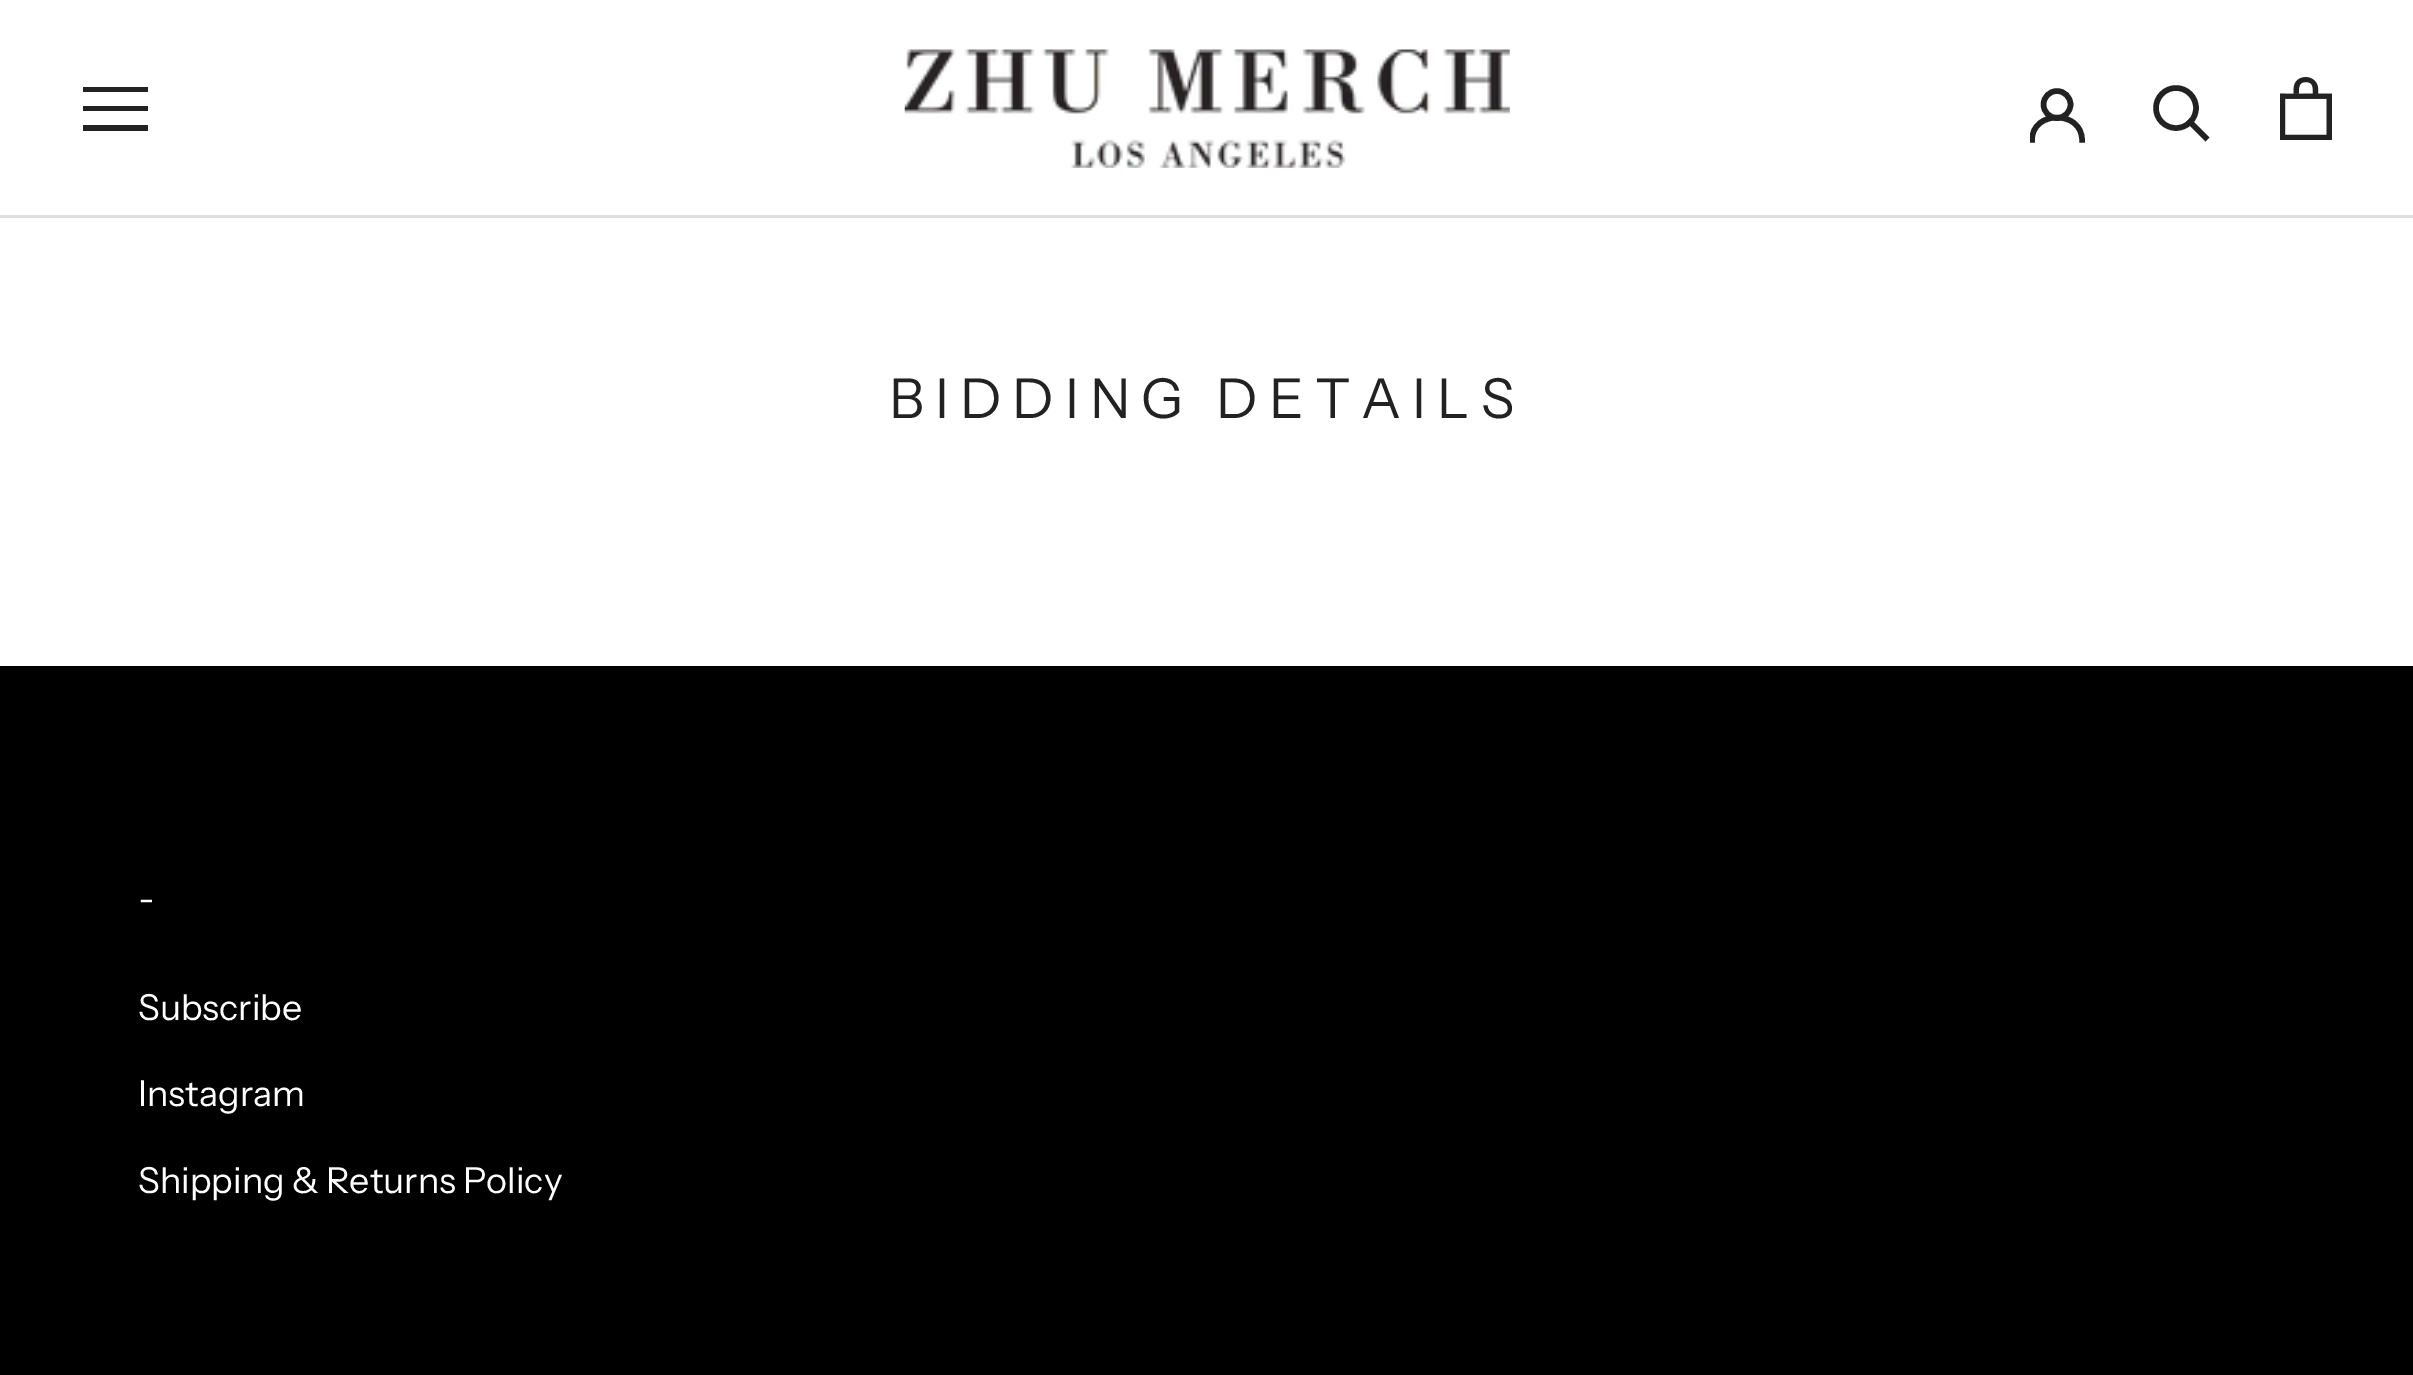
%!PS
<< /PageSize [2413 1375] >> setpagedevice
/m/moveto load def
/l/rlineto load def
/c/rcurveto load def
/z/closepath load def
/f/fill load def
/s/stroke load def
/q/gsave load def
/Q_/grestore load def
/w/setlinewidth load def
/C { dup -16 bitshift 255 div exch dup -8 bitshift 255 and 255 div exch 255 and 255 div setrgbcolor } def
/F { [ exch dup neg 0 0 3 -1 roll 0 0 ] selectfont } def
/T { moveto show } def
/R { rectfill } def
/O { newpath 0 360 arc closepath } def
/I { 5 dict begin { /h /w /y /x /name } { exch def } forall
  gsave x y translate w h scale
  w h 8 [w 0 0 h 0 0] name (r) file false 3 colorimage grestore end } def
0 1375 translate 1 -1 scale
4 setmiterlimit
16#FFFFFF C
0 0 2413 1375 R
16#DEDEDE C
0 215 2413 3 R
q
83 85 66 47 rectclip
16#222222 C
82 131 m 0 -6 l 66 0 l 0 6 l z 82 106 m 66 0 l 0 5 l -66 0 l z 82 87 m 66 0 l 0 5 l -66 0 l z f
Q_
(1.rgb) 904 49 606 119 I
q
2030 88 55 55 rectclip
16#222222 C
5.5 w
2 setlinecap
2032 140 m 0 -30 50 -30 50 0 c s
Q_
16#222222 C
5.5 w
2057 104.5 13.5 O s
2 setlinecap
2205.5 137.5 m -15.5 -15.5 l s
0 setlinecap
2176 108 20 O s
(2.rgb) 2280 77 52 63 I
/InstrumentSans-Regular 55 F
889 418 m 11 0 (BIDDING DETAILS) ashow
16#000000 C
0 666 2413 709 R
/InstrumentSans-Regular 33 F
16#FFFFFF C
138 910 m 7 0 (-) ashow
/InstrumentSans-Regular 35.75 F
(Subscribe) 138 1020 T
(Instagram) 138 1106 T
(Shipping & Returns Policy) 138 1193 T
showpage
